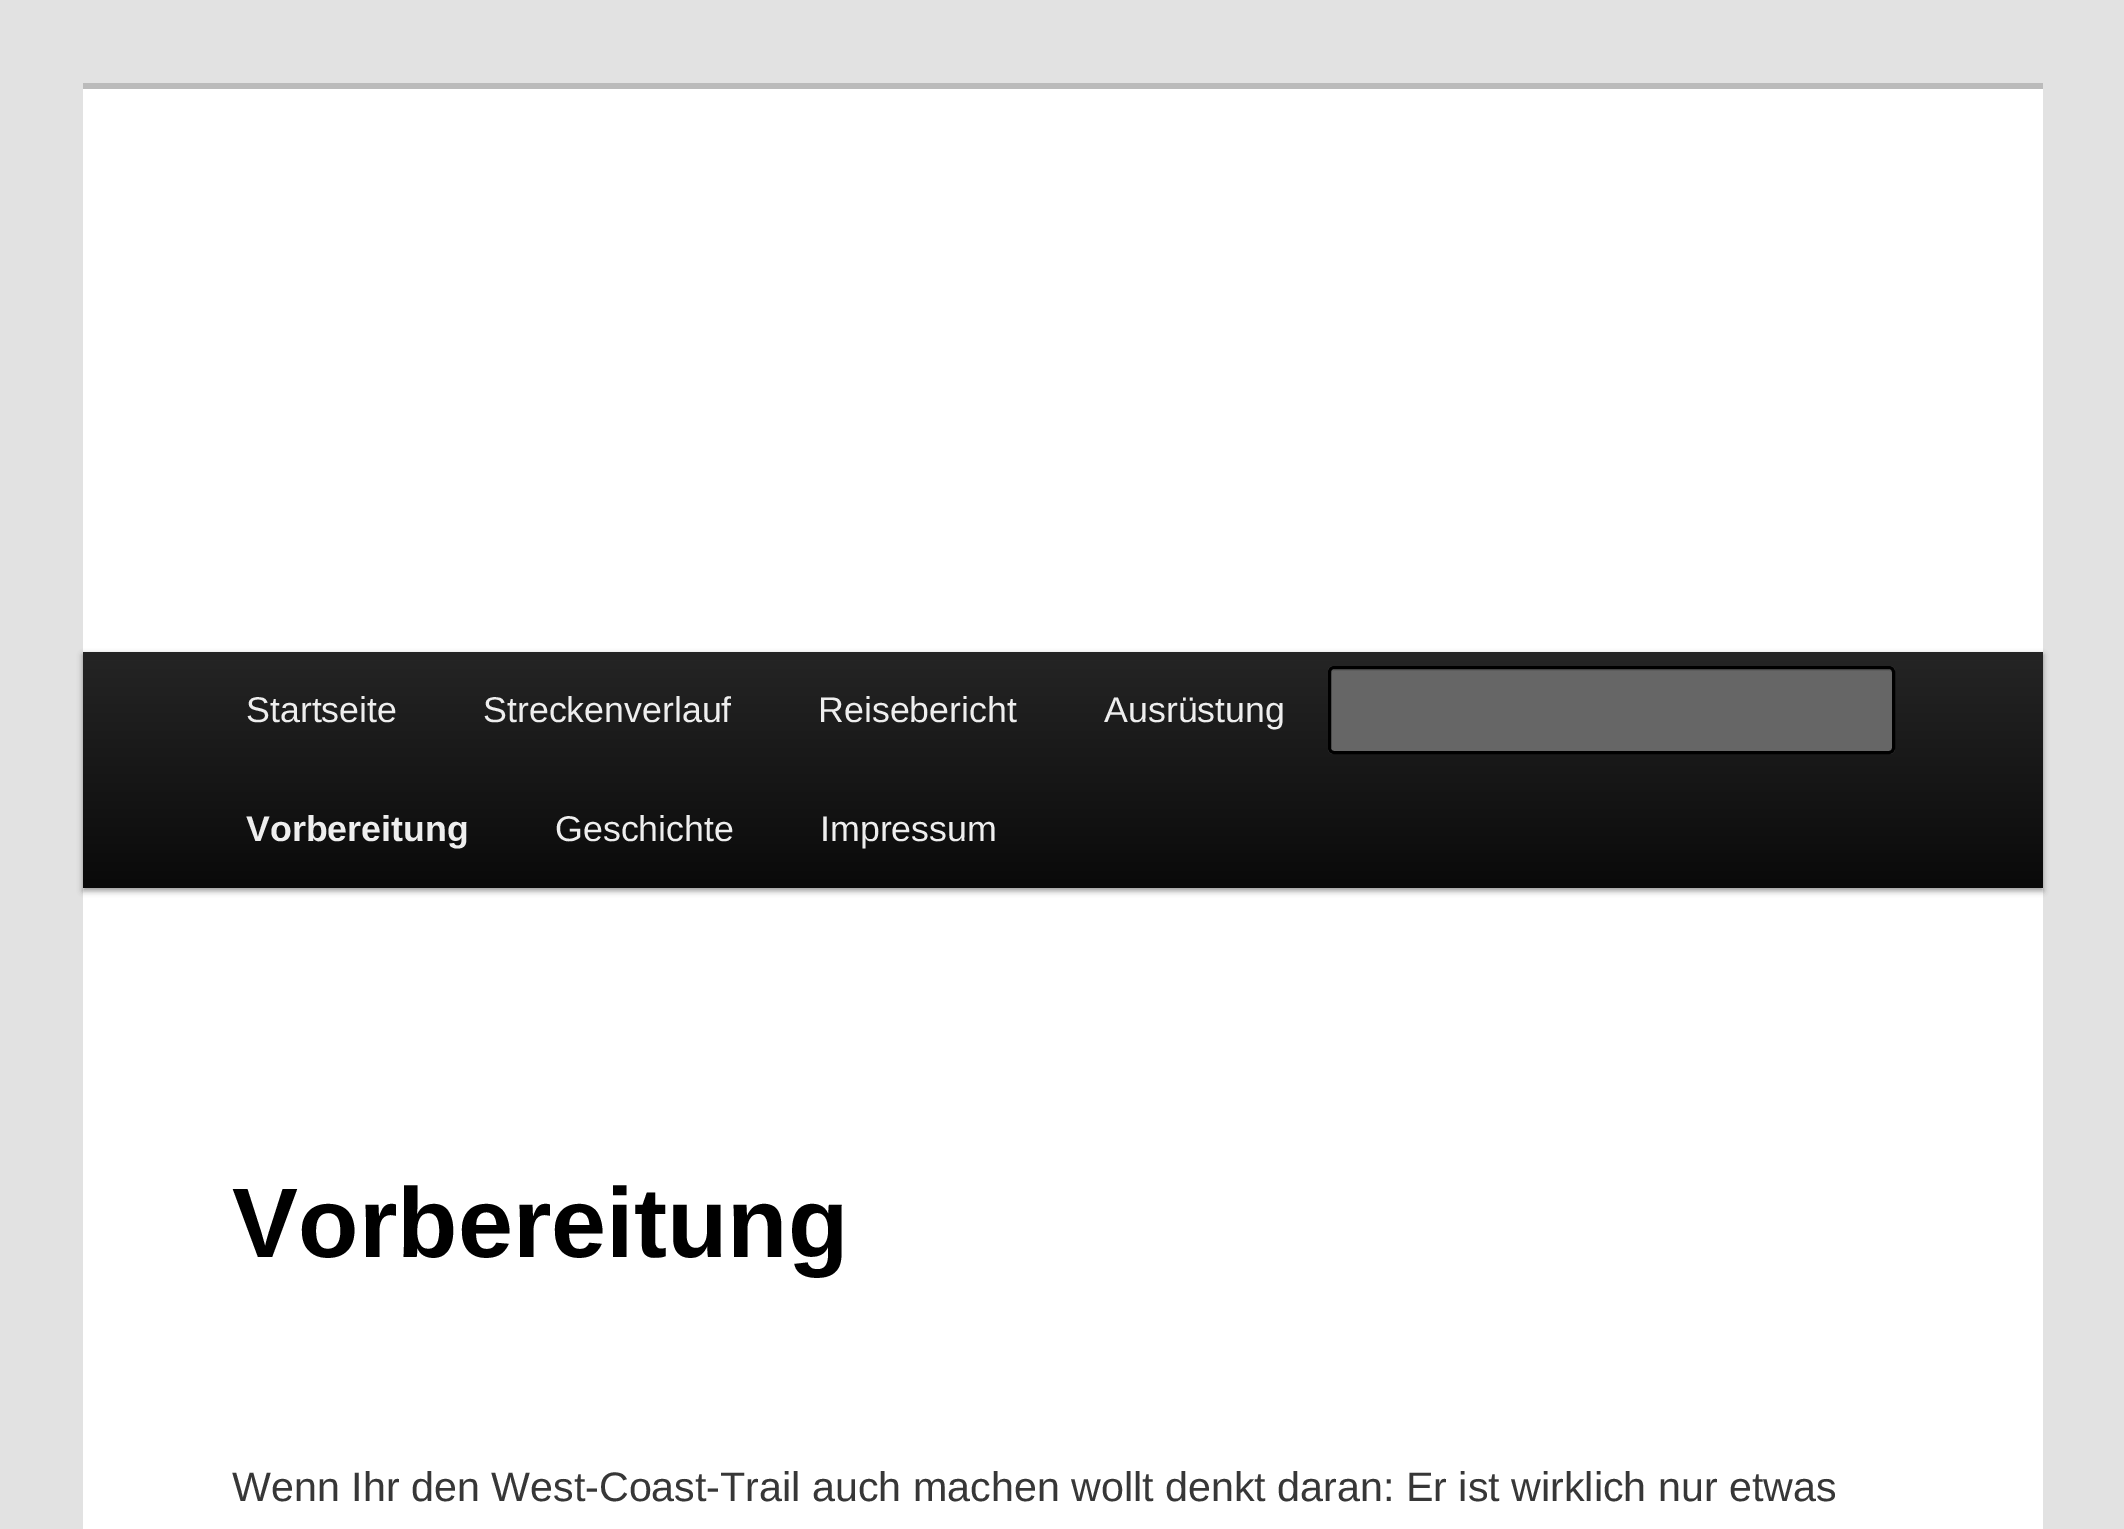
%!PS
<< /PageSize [2124 1529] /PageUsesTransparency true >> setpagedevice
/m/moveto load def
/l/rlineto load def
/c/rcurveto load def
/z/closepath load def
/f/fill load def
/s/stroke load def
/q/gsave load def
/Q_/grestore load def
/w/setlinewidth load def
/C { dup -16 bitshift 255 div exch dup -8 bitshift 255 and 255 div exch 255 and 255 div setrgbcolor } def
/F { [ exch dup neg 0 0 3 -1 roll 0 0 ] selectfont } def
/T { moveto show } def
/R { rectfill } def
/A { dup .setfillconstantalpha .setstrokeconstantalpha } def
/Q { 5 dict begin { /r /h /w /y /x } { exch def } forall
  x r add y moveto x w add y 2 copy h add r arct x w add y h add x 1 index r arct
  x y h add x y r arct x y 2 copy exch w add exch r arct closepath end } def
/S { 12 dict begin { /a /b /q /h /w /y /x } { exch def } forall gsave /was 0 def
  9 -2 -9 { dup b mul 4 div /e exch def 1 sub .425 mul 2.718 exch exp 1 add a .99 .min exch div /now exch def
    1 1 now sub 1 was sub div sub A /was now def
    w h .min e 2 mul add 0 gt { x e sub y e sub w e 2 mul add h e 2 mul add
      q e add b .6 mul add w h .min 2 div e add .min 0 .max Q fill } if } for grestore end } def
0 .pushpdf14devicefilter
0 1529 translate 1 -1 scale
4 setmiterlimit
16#E2E2E2 C
0 0 2124 1529 R
16#FFFFFF C
83 89 1960 1440 R
16#BBBBBB C
83 83 1960 6 R
16#000000 C
83 655 1960 236 0 3 .4 S
q 83 652 m 1960 0 l 0 236 l -1960 0 l z clip newpath
<< /ShadingType 2 /ColorSpace /DeviceRGB /Coords [1063 652 1063 888] /Extend [true true] /Function << /FunctionType 2 /Domain [0 1] /C0 [.145 .145 .145] /C1 [.039 .039 .039] /N 1 >> >> shfill Q_
/LiberationSans-Regular 35.75 F
16#EEEEEE C
(Startseite) 246 722 T
(Streckenverlauf) 483 722 T
(Reisebericht) 818 722 T
(Ausrüstung) 1104 722 T
/LiberationSans-Bold 35.75 F
(Vorbereitung) 246 841 T
/LiberationSans-Regular 35.75 F
(Geschichte) 555 841 T
(Impressum) 820 841 T
16#666666 C
1328 666 567 88 6 Q f
16#5C5C5C C
1334 671 m 555 0 l 2 0 3 1 3 3 c 0 -3 l 0 -2 -1 -3 -3 -3 c -555 0 l -2 0 -3 1 -3 3 c 0 3 l 0 -2 1 -3 3 -3 c z f
16#000000 C
3 w
1329.5 667.5 564 85 4.5 Q s
/LiberationSans-Bold 99 F
(Vorbereitung) 232 1257 T
/LiberationSans-Regular 41.25 F
16#373737 C
(Wenn Ihr den West-Coast-Trail auch machen wollt denkt daran: Er ist wirklich nur etwas) 232 1501 T
.poppdf14devicefilter showpage
